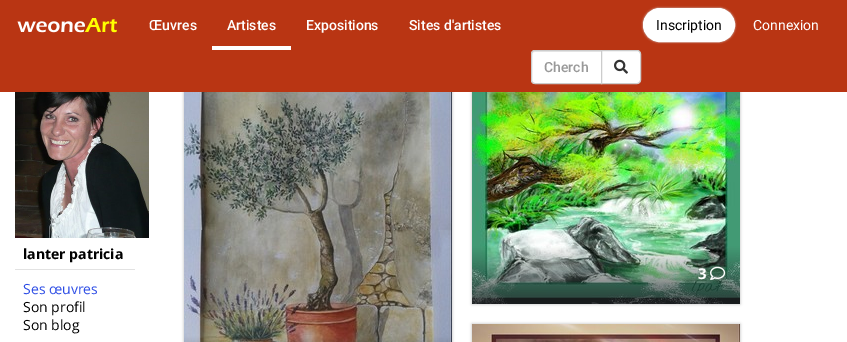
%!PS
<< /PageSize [847 342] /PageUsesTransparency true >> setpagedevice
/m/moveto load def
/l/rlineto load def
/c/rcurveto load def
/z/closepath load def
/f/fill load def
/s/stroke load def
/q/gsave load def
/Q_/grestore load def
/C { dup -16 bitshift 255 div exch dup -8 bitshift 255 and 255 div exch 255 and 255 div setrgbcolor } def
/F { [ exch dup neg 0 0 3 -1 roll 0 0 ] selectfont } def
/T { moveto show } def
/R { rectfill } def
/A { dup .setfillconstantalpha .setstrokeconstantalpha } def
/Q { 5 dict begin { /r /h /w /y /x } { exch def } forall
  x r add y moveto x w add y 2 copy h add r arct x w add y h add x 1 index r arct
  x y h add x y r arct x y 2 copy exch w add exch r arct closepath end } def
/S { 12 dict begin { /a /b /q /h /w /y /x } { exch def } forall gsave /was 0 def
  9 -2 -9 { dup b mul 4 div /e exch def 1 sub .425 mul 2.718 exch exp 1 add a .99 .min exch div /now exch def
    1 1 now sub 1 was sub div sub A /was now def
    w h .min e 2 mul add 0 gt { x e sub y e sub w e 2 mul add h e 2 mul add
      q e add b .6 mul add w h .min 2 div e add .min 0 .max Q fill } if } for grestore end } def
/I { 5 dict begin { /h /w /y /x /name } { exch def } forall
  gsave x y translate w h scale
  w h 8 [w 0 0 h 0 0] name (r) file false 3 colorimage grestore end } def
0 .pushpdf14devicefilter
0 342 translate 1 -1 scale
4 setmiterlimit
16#FFFFFF C
0 0 847 342 R
16#BBBBBB C
184 70 268 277 0 1.5 1 S
472 70 268 234 0 1.5 1 S
16#B93513 C
0 0 847 92 R
(1.rgb) 17 18 100 15 I
/Roboto-Medium 14 F
16#FFFFFF C
(Œuvres) 149 30 T
(Artistes) 227 30 T
212 46 79 4 R
(Expositions) 306 30 T
(Sites d'artistes) 409 30 T
16#CCCCCC C
643 8 92 34 17 1 1 S
16#FFFFFF C
643.5 8.5 91 33 16.5 Q q f Q_
s
/Roboto-Regular 14 F
16#000000 C
(Inscription) 656 30 T
16#FFFFFF C
(Connexion) 753 30 T
535 50 m 67 0 l 0 34 l -67 0 l -2 0 -4 -2 -4 -4 c 0 -26 l 0 -2 2 -4 4 -4 c z f
16#ECECEC C
535 52 m 66 0 l 0 -1 l -66 0 l -2 0 -3 1 -3 3 c 0 1 l 0 -2 1 -3 3 -3 c z f
16#CCCCCC C
535 50.5 m 66.5 0 l 0 33 l -66.5 0 l -2 0 -3.5 -1.5 -3.5 -3.5 c 0 -26 l 0 -2 1.5 -3.5 3.5 -3.5 c z s
/Roboto-Medium 14 F
16#999999 C
(Cherch) 544 72 T
16#FFFFFF C
601.5 50.5 m 35.5 0 l 2 0 3.5 1.5 3.5 3.5 c 0 26 l 0 2 -1.5 3.5 -3.5 3.5 c -35.5 0 l z q f Q_
16#CCCCCC C
s
(2.rgb) 614 59 14 15 I
(3.rgb) 15 92 134 146 I
16#E2E2E2 C
15 269 120 1 R
/OpenSans-Bold 14 F
16#000000 C
(lanter patricia) 23 259 T
/OpenSans-Regular 14 F
16#2C4CE5 C
(Ses œuvres) 23 294 T
16#000000 C
(Son profil) 23 312 T
(Son blog) 23 330 T
(4.rgb) 184 92 268 250 I
(5.rgb) 472 92 268 212 I
/OpenSans-Bold 15 F
16#FFFFFF C
(3) 698 279 T
(6.rgb) 710 266 16 14 I
16#BBBBBB C
472 324 268 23 0 1.5 1 S
(7.rgb) 472 324 268 18 I
.poppdf14devicefilter showpage
